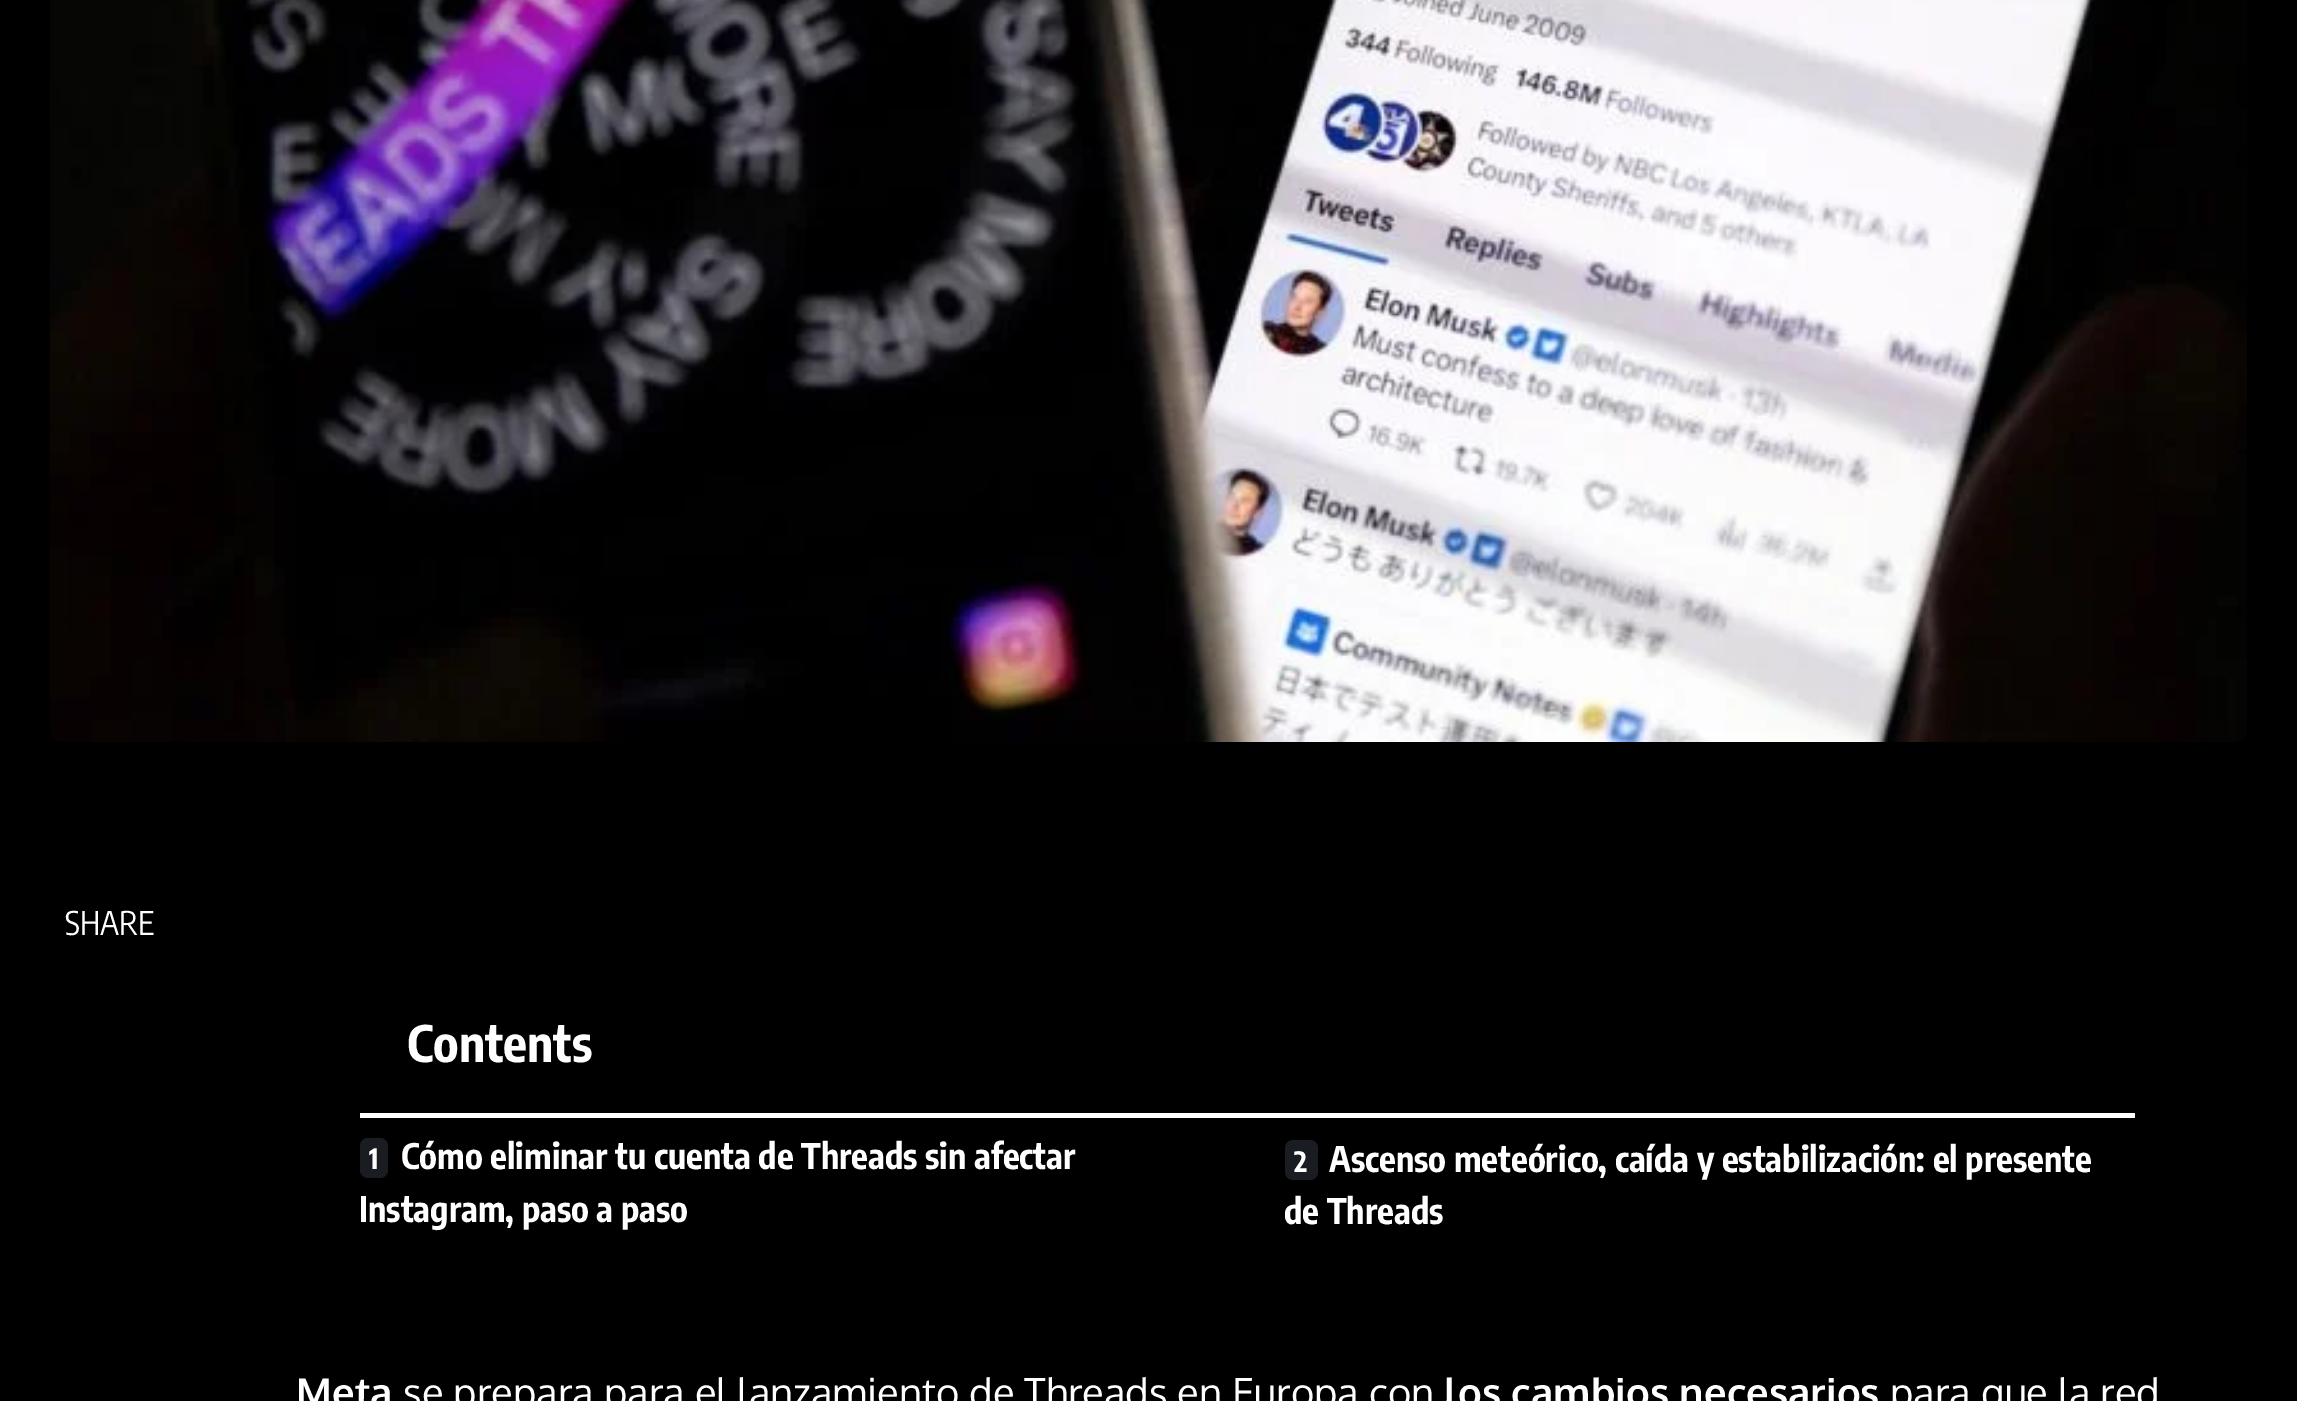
%!PS
<< /PageSize [2297 1401] >> setpagedevice
/f/fill load def
/C { dup -16 bitshift 255 div exch dup -8 bitshift 255 and 255 div exch 255 and 255 div setrgbcolor } def
/F { [ exch dup neg 0 0 3 -1 roll 0 0 ] selectfont } def
/T { moveto show } def
/R { rectfill } def
/Q { 5 dict begin { /r /h /w /y /x } { exch def } forall
  x r add y moveto x w add y 2 copy h add r arct x w add y h add x 1 index r arct
  x y h add x y r arct x y 2 copy exch w add exch r arct closepath end } def
/I { 5 dict begin { /h /w /y /x /name } { exch def } forall
  gsave x y translate w h scale
  w h 8 [w 0 0 h 0 0] name (r) file false 3 colorimage grestore end } def
0 1401 translate 1 -1 scale
4 setmiterlimit
16#000000 C
0 0 2297 1401 R
(1.rgb) 50 0 2197 742 I
/EncodeSansCondensed-Regular 32.5 F
16#FFFFFF C
(SHARE) 65 935 T
/EncodeSansCondensed-Bold 50 F
(Contents) 407 1062 T
360 1113 1775 5 R
16#191C20 C
360 1138 28 40 8 Q f
/EncodeSansCondensed-Bold 28 F
16#FFFFFF C
(1) 369 1169 T
/EncodeSansCondensed-Bold 35 F
(Cómo eliminar tu cuenta de Threads sin afectar) 401 1169 T
(Instagram, paso a paso) 359 1222 T
16#191C20 C
1285 1140 33 40 8 Q f
/EncodeSansCondensed-Bold 28 F
16#FFFFFF C
(2) 1294 1172 T
/EncodeSansCondensed-Bold 35 F
(Ascenso meteórico, caída y estabilización: el presente) 1329 1172 T
(de Threads) 1284 1224 T
/Oxygen-Bold 40 F
(Meta) 296 1407 T
/Oxygen-Regular 40 F
(se prepara para el lanzamiento de Threads en Europa con) 403 1407 T
/Oxygen-Bold 40 F
(los cambios necesarios) 1444 1407 T
/Oxygen-Regular 40 F
(para que la red) 1890 1407 T
showpage
